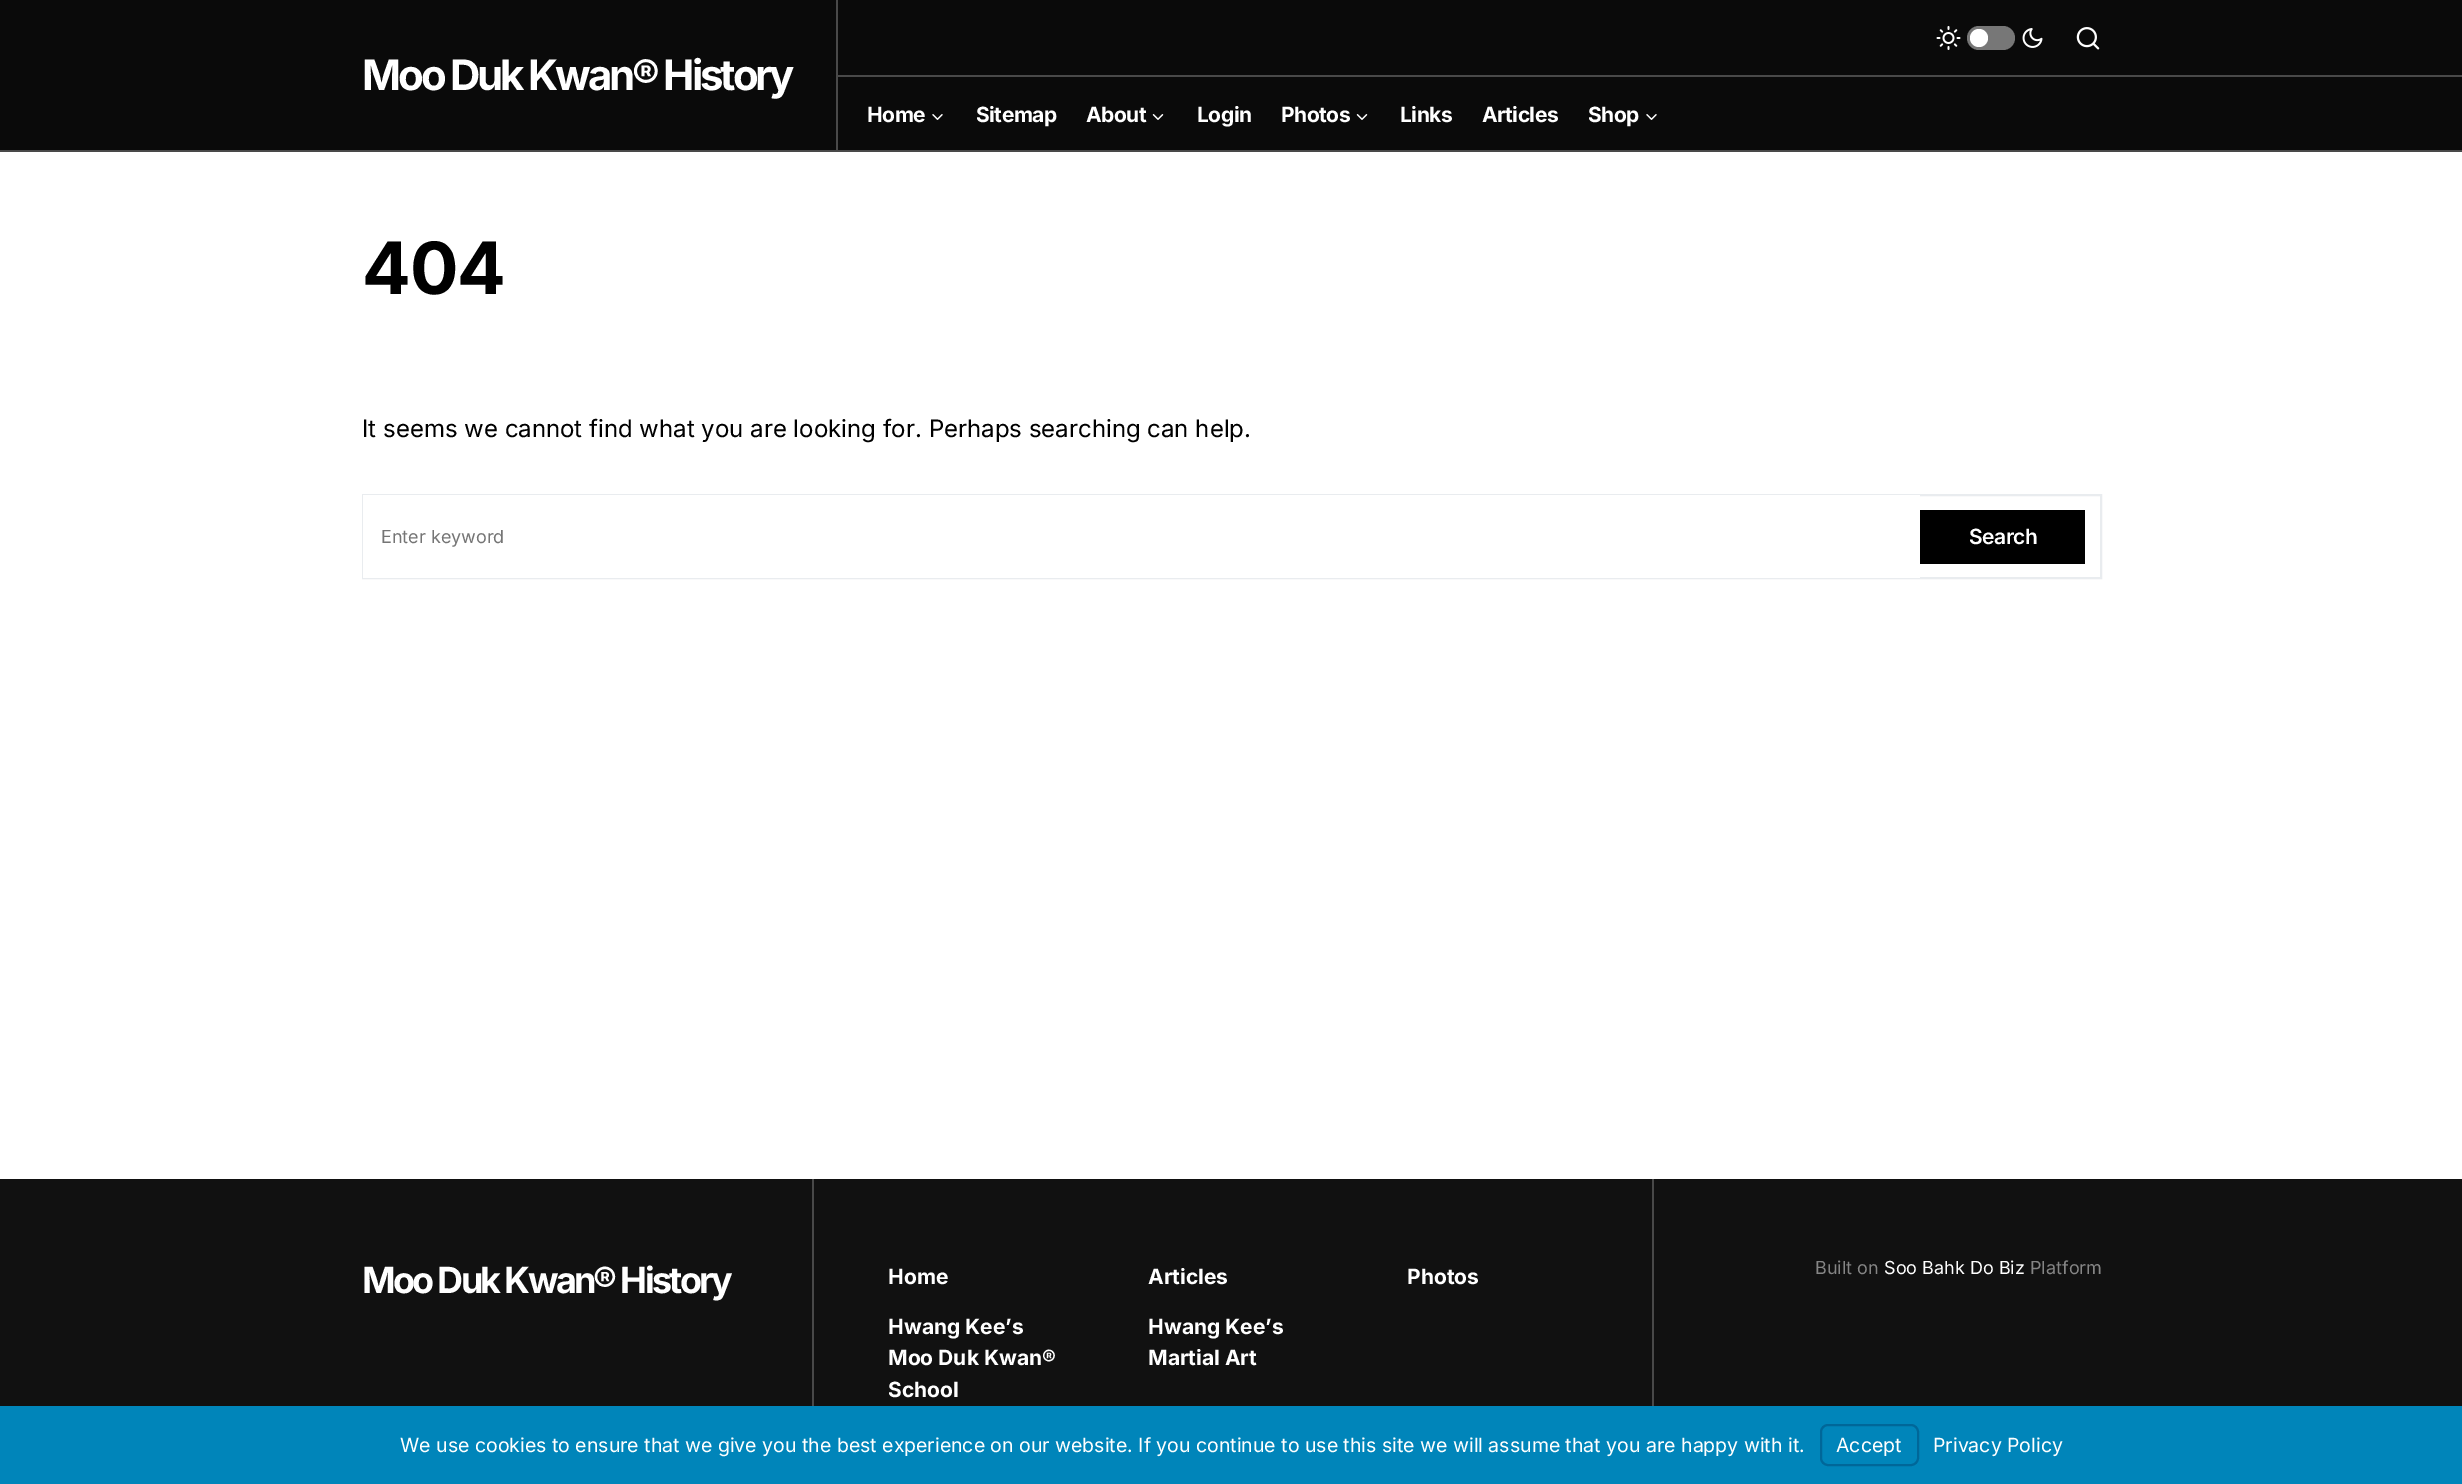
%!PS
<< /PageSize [2462 1484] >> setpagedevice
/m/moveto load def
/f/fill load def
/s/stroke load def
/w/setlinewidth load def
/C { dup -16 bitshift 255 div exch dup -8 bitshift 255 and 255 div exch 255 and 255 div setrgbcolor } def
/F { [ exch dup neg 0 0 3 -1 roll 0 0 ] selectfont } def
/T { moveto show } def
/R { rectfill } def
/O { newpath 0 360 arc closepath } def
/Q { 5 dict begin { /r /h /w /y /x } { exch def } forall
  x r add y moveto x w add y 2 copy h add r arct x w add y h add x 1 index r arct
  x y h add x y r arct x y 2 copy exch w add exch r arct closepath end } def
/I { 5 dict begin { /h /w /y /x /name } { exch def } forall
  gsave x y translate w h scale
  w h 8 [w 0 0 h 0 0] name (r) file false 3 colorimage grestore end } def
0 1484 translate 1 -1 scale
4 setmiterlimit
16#FFFFFF C
0 0 2462 1484 R
16#0A0A0A C
0 0 2462 150 R
16#494949 C
0 150 2462 2 R
836 0 2 150 R
/Inter-Bold 42 F
16#FFFFFF C
362 90 m -3.15 0 (Moo Duk Kwan® History) ashow
16#494949 C
837 75 1625 2 R
(1.rgb) 1936 26 25 24 I
16#777777 C
1967 26 48 24 12 Q f
16#FFFFFF C
1979 38 9 O f
(2.rgb) 2022 28 21 20 I
(3.rgb) 2076 27 24 23 I
/Inter-Bold 21 F
867 122 m -.5 0 (Home) ashow
(4.rgb) 932 114 11 6 I
976 122 m -.5 0 (Sitemap) ashow
1086 122 m -.5 0 (About) ashow
(5.rgb) 1152 114 12 6 I
1197 122 m -.5 0 (Login) ashow
1281 122 m -.5 0 (Photos) ashow
(5.rgb) 1356 114 12 6 I
1400 122 m -.5 0 (Links) ashow
1482 122 m -.5 0 (Articles) ashow
1588 122 m -.5 0 (Shop) ashow
(4.rgb) 1646 114 11 6 I
/Inter-Bold 72 F
16#000000 C
362 294 m -1 0 (404) ashow
/Inter-Regular 24 F
(It seems we cannot find what you are looking for. Perhaps searching can help.) 362 437 T
16#E9ECEF C
2 w
363 495 1738 83 rectstroke
16#FFFFFF C
363 495 1557 83 R
/Inter-Regular 18 F
16#757575 C
(Enter keyword) 381 543 T
16#000000 C
1920 510 165 54 R
/Inter-SemiBold 21 F
16#FFFFFF C
1969 544 m -.5 0 (Search) ashow
16#111111 C
0 1179 2462 227 R
/Inter-Bold 36 F
16#FFFFFF C
362 1293 m -2.7 0 (Moo Duk Kwan® History) ashow
16#494949 C
812 1179 2 227 R
/Inter-Bold 21 F
16#FFFFFF C
(Home) 888 1284 T
(Articles) 1148 1284 T
(Photos) 1407 1284 T
(Hwang Kee’s) 888 1334 T
(Moo Duk Kwan®) 888 1365 T
(School) 888 1397 T
(Hwang Kee’s) 1148 1334 T
(Martial Art) 1148 1365 T
16#494949 C
1652 1179 2 227 R
/Inter-Regular 18 F
16#858585 C
(Built on) 1815 1274 T
16#FFFFFF C
(Soo Bahk Do Biz) 1884 1274 T
16#858585 C
(Platform) 2030 1274 T
16#0085BA C
0 1406 2462 78 R
/Inter-Regular 19.5 F
16#FFFFFF C
(We use cookies to ensure that we give you the best experience on our website. If you continue to use this site we will assume that you are happy with it.) 400 1452 T
16#006799 C
1821 1425 97 40 7 Q s
16#FFFFFF C
(Accept) 1836 1452 T
(Privacy Policy) 1933 1452 T
showpage
